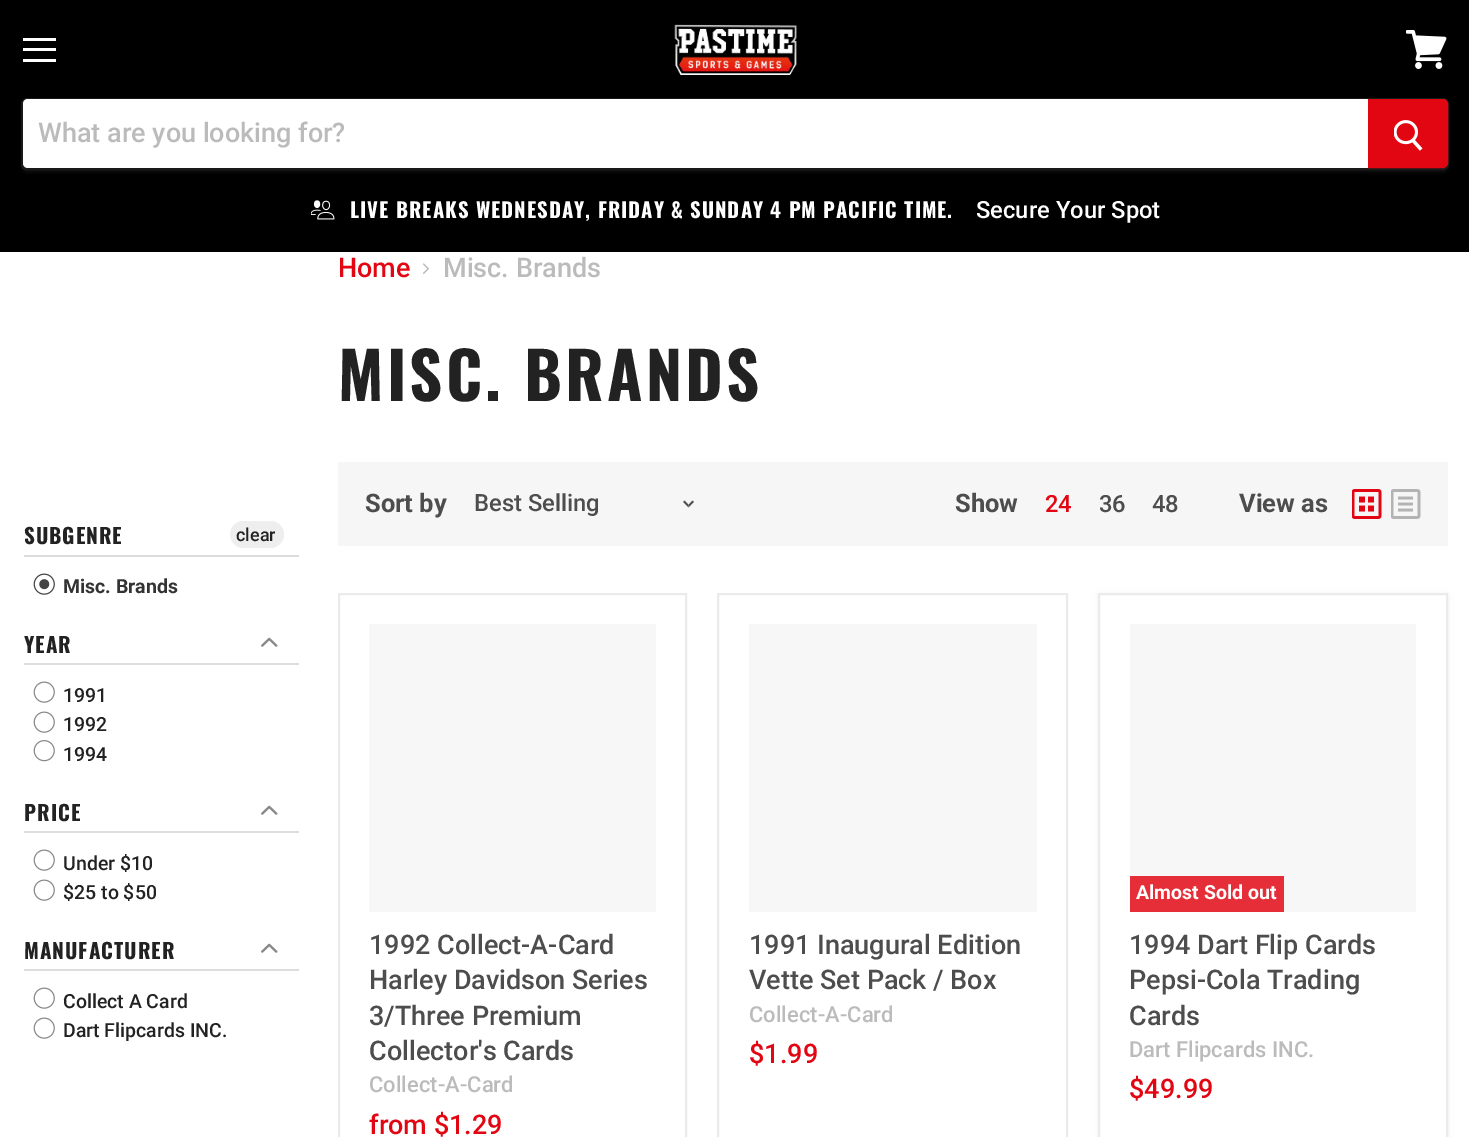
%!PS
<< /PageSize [1469 1137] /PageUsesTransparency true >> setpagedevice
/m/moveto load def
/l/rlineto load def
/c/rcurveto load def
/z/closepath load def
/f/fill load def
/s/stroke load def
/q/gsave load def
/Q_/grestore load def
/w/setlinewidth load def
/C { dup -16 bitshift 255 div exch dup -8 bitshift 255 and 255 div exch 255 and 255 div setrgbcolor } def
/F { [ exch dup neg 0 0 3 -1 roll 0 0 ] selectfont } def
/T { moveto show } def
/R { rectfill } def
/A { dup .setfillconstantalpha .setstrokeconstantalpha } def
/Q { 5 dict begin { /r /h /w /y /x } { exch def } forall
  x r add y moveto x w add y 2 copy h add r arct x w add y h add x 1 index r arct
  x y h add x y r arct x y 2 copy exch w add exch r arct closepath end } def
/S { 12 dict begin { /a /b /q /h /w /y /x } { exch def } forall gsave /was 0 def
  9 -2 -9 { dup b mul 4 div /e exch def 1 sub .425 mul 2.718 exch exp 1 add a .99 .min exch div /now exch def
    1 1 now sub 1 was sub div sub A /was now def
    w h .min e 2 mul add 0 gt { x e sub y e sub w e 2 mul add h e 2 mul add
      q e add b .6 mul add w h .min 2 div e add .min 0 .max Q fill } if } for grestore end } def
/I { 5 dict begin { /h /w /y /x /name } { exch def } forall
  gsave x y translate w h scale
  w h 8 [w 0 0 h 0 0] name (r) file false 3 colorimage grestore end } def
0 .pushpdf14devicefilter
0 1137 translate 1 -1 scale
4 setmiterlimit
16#FFFFFF C
0 0 1469 1137 R
16#000000 C
0 0 1469 252 R
16#FFFFFF C
23 38 33 3 R
23 48 33 3 R
23 59 33 3 R
(1.rgb) 1406 30 41 39 I
(2.rgb) 674 24 123 51 I
q
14 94 m 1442 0 l 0 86 l -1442 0 l z 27 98 m 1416 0 l 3.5 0 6 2.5 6 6 c 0 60 l 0 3.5 -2.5 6 -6 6 c -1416 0 l -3.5 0 -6 -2.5 -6 -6 c 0 -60 l 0 -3.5 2.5 -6 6 -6 c z eoclip newpath
16#7F7F7F C
21 101 1428 72 6 2 .11 S
Q_
0.2 A
16#7F7F7F C
2 w
22 99 1426 70 5 Q s
1 A
16#FFFFFF C
28 99 m 1340 0 l 0 69 l -1340 0 l -3 0 -5 -2 -5 -5 c 0 -59 l 0 -3 2 -5 5 -5 c z f
/Roboto-Medium 27 F
16#BBBBBB C
(What are you looking for?) 38 142 T
16#E20613 C
1369 100 m 74 0 l 2 0 4 2 4 4 c 0 59 l 0 2 -2 4 -4 4 c -74 0 l z q f Q_
s
(3.rgb) 1394 120 29 31 I
(4.rgb) 311 200 24 20 I
/Oswald-Bold 20.6 F
16#FFFFFF C
350 218 m 1.03 0 (LIVE BREAKS WEDNESDAY, FRIDAY & SUNDAY 4 PM PACIFIC TIME.) ashow
/Roboto-Medium 23.75 F
(Secure Your Spot) 976 218 T
16#DDDDDD C
24 555 275 2 R
/Oswald-Bold 21 F
16#222222 C
24 544 m 1 0 (SUBGENRE) ashow
16#EEEEEE C
230 521 54 27 13.5 Q f
/Roboto-Medium 18 F
16#222222 C
(clear) 236 541 T
(5.rgb) 33 573 22 22 I
/Roboto-Bold 19.5 F
16#333333 C
(Misc. Brands) 63 593 T
16#DDDDDD C
24 663 275 2 R
/Oswald-Bold 21 F
16#222222 C
24 653 m 1 0 (YEAR) ashow
(6.rgb) 261 637 17 10 I
(7.rgb) 33 681 22 22 I
/Roboto-Medium 19.5 F
(1991) 63 702 T
(7.rgb) 33 711 22 22 I
(1992) 63 731 T
(8.rgb) 33 740 22 22 I
(1994) 63 761 T
16#DDDDDD C
24 831 275 2 R
/Oswald-Bold 21 F
16#222222 C
24 821 m 1 0 (PRICE) ashow
(6.rgb) 261 805 17 10 I
(7.rgb) 33 849 22 22 I
/Roboto-Medium 19.5 F
(Under $10) 63 870 T
(7.rgb) 33 879 22 22 I
($25 to $50) 63 899 T
16#DDDDDD C
24 969 275 2 R
/Oswald-Bold 21 F
16#222222 C
24 959 m 1 0 (MANUFACTURER) ashow
(6.rgb) 261 943 17 10 I
(7.rgb) 33 987 22 22 I
/Roboto-Medium 19.5 F
(Collect A Card) 63 1008 T
(7.rgb) 33 1017 22 22 I
(Dart Flipcards INC.) 63 1037 T
/Roboto-Medium 27 F
16#E20613 C
(Home) 338 277 T
(9.rgb) 423 263 7 11 I
16#BBBBBB C
(Misc. Brands) 443 277 T
/Oswald-Bold 64.5 F
16#222222 C
338 401 m 3.25 0 (MISC. BRANDS) ashow
16#F6F6F6 C
338 462 1110 84 R
/Roboto-Bold 25.5 F
16#4D4D4D C
(Sort by) 365 512 T
/Roboto-Medium 23.75 F
(Best Selling) 474 511 T
(10.rgb) 683 500 11 8 I
/Roboto-Bold 25.5 F
(Show) 955 512 T
/Roboto-Medium 23.75 F
16#E20613 C
(24) 1045 512 T
16#4D4D4D C
(36) 1099 512 T
(48) 1152 512 T
/Roboto-Bold 25.5 F
(View as) 1239 512 T
(11.rgb) 1352 489 30 30 I
(12.rgb) 1391 489 30 30 I
16#EBEBEB C
339 594 347 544 rectstroke
16#F7F7F7 C
369 624 287 288 R
/Roboto-Medium 27 F
16#4D4D4D C
(1992 Collect-A-Card) 369 954 T
(Harley Davidson Series) 369 989 T
(3/Three Premium) 369 1025 T
(Collector's Cards) 369 1060 T
/Roboto-Medium 22 F
16#BBBBBB C
(Collect-A-Card) 369 1092 T
/Roboto-Medium 27 F
16#E20613 C
(from $1.29) 369 1134 T
16#EBEBEB C
718 594 349 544 rectstroke
16#F7F7F7 C
749 624 288 288 R
16#4D4D4D C
(1991 Inaugural Edition) 749 954 T
(Vette Set Pack / Box) 749 989 T
/Roboto-Medium 22 F
16#BBBBBB C
(Collect-A-Card) 749 1022 T
/Roboto-Medium 27 F
16#E20613 C
($1.99) 749 1063 T
16#7F7F7F C
1098 594 350 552 0 3 .11 S
16#FFFFFF C
1099 594 m 348 0 l 0 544 l -348 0 l z q f Q_
16#EBEBEB C
s
16#F7F7F7 C
1130 624 286 288 R
16#E62E38 C
1130 876 154 36 R
/Roboto-Bold 19.5 F
16#FFFFFF C
(Almost Sold out) 1136 899 T
/Roboto-Medium 27 F
16#4D4D4D C
(1994 Dart Flip Cards) 1129 954 T
(Pepsi-Cola Trading) 1129 989 T
(Cards) 1129 1025 T
/Roboto-Medium 22 F
16#BBBBBB C
(Dart Flipcards INC.) 1129 1057 T
/Roboto-Medium 27 F
16#E20613 C
($49.99) 1129 1098 T
.poppdf14devicefilter showpage
